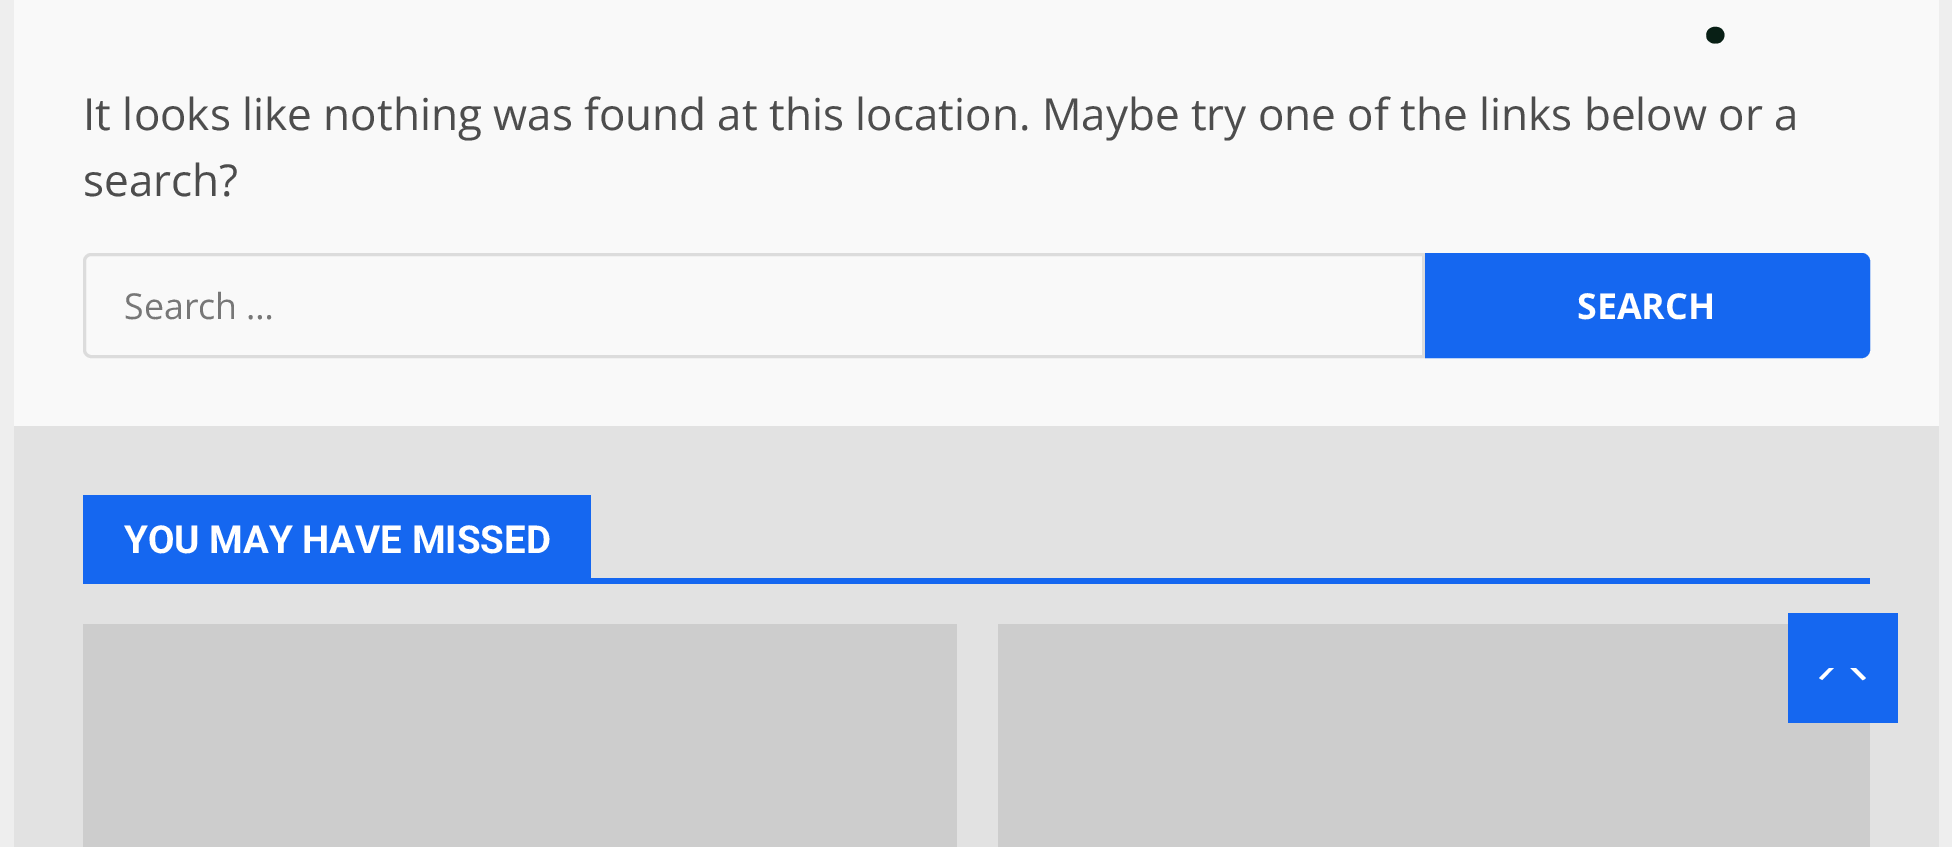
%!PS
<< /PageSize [1952 847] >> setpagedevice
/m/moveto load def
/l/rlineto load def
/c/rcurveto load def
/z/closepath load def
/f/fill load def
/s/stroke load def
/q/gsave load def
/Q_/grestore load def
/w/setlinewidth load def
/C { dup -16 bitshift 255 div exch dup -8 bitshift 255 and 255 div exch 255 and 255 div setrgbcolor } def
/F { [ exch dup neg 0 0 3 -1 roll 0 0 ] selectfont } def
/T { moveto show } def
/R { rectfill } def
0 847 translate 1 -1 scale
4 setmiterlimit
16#EEEEEE C
0 0 1952 847 R
16#F9F9F9 C
14 0 1925 426 R
/Roboto-Bold 116 F
16#081F15 C
(.) 1699 43 T
/OpenSans-Regular 44 F
16#4D4D4D C
(It looks like nothing was found at this location. Maybe try one of the links below or a) 83 130 T
(search?) 83 196 T
16#DCDCDC C
3 w
91 254.5 m 1332.5 0 l 0 102 l -1332.5 0 l -3.5 0 -6.5 -3 -6.5 -6.5 c 0 -89 l 0 -3.5 3 -6.5 6.5 -6.5 c z s
/OpenSans-Regular 35.75 F
16#777777 C
(Search …) 124 319 T
16#1567F0 C
1426.5 254.5 m 435.5 0 l 3.5 0 6.5 3 6.5 6.5 c 0 89 l 0 3.5 -3 6.5 -6.5 6.5 c -435.5 0 l z q f Q_
s
/OpenSans-Bold 35.75 F
16#FFFFFF C
(SEARCH) 1577 319 T
16#E2E2E2 C
14 426 1925 421 R
16#1567F0 C
83 578 1787 6 R
83 495 508 83 R
/Roboto-Bold 38.5 F
16#FFFFFF C
(YOU MAY HAVE MISSED) 124 553 T
16#CDCDCD C
83 624 874 223 R
998 624 872 223 R
16#1567F0 C
1788 613 110 110 R
16#FFFFFF C
1829 682 m 27 0 l 4 0 8 -2 10 -4 c -10 -10 l -27 0 l -10 10 l 3 2 6 4 10 4 c z f
16#1567F0 C
1870 688 m -55 0 l 27 -28 l z f
showpage
